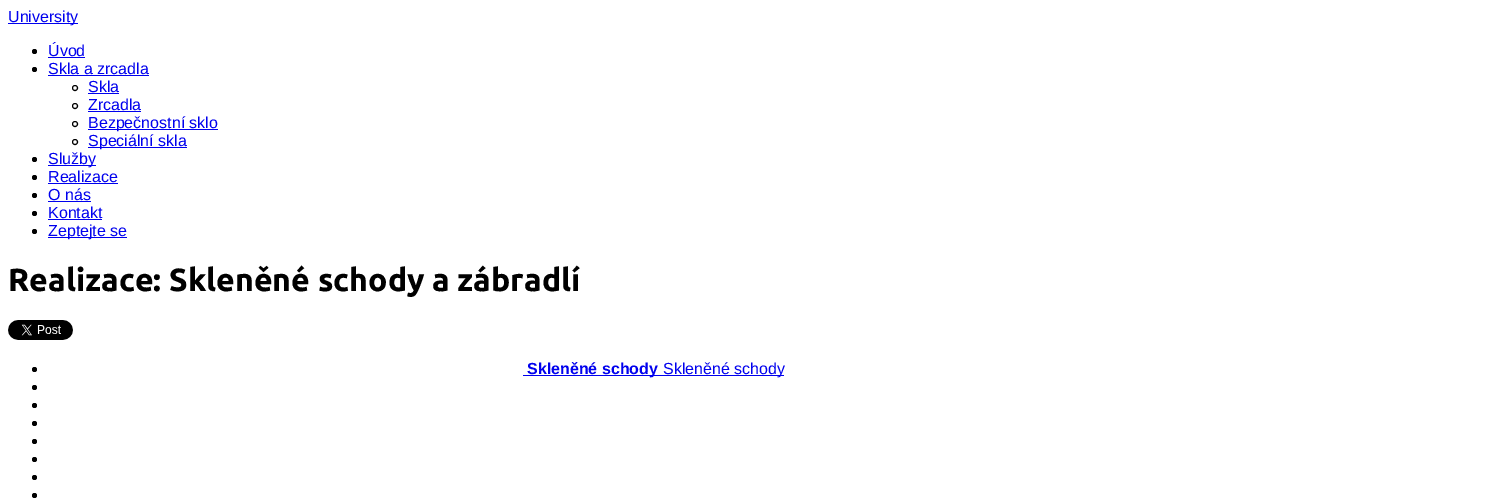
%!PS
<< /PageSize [1504 499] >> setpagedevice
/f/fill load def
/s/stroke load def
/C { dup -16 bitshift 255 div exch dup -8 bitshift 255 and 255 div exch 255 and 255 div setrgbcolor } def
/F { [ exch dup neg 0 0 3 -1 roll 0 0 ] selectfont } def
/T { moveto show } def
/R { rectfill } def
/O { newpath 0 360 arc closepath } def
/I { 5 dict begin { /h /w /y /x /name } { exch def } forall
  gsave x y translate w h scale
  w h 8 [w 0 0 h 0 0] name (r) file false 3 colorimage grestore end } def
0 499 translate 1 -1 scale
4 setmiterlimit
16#FFFFFF C
0 0 1504 499 R
16#0000EE C
8 23 70 1 R
/LiberationSans-Regular 16 F
(University) 8 22 T
16#000000 C
34.5 51.5 2.5 O f
16#0000EE C
(Úvod) 48 56 T
48 57 37 1 R
16#000000 C
34.5 69.5 2.5 O f
16#0000EE C
(Skla a zrcadla) 48 74 T
48 75 101 1 R
16#000000 C
75 88 2.5 O s
16#0000EE C
(Skla) 88 92 T
88 93 31 1 R
16#000000 C
75 106 2.5 O s
16#0000EE C
(Zrcadla) 88 110 T
88 111 53 1 R
16#000000 C
75 124 2.5 O s
16#0000EE C
88 129 130 1 R
(Bezpečnostní sklo) 88 128 T
16#000000 C
75 142 2.5 O s
16#0000EE C
88 147 99 1 R
(Speciální skla) 88 146 T
16#000000 C
34.5 159.5 2.5 O f
16#0000EE C
48 165 48 1 R
(Služby) 48 164 T
16#000000 C
34.5 177.5 2.5 O f
16#0000EE C
(Realizace) 48 182 T
48 183 70 1 R
16#000000 C
34.5 195.5 2.5 O f
16#0000EE C
(O nás) 48 200 T
48 201 43 1 R
16#000000 C
34.5 213.5 2.5 O f
16#0000EE C
(Kontakt) 48 218 T
48 219 54 1 R
16#000000 C
34.5 231.5 2.5 O f
16#0000EE C
48 237 79 1 R
(Zeptejte se) 48 236 T
/Ubuntu-Bold 32 F
16#000000 C
(Realizace: Skleněné schody a zábradlí) 8 291 T
(1.rgb) 8 320 65 20 I
34.5 369.5 2.5 O f
16#0000EE C
523 375 261 1 R
/LiberationSans-Bold 16 F
(Skleněné schody) 527 374 T
/LiberationSans-Regular 16 F
(Skleněné schody) 663 374 T
16#000000 C
34.5 387.5 2.5 O f
34.5 405.5 2.5 O f
34.5 423.5 2.5 O f
34.5 441.5 2.5 O f
34.5 459.5 2.5 O f
34.5 477.5 2.5 O f
34.5 495.5 2.5 O f
showpage
